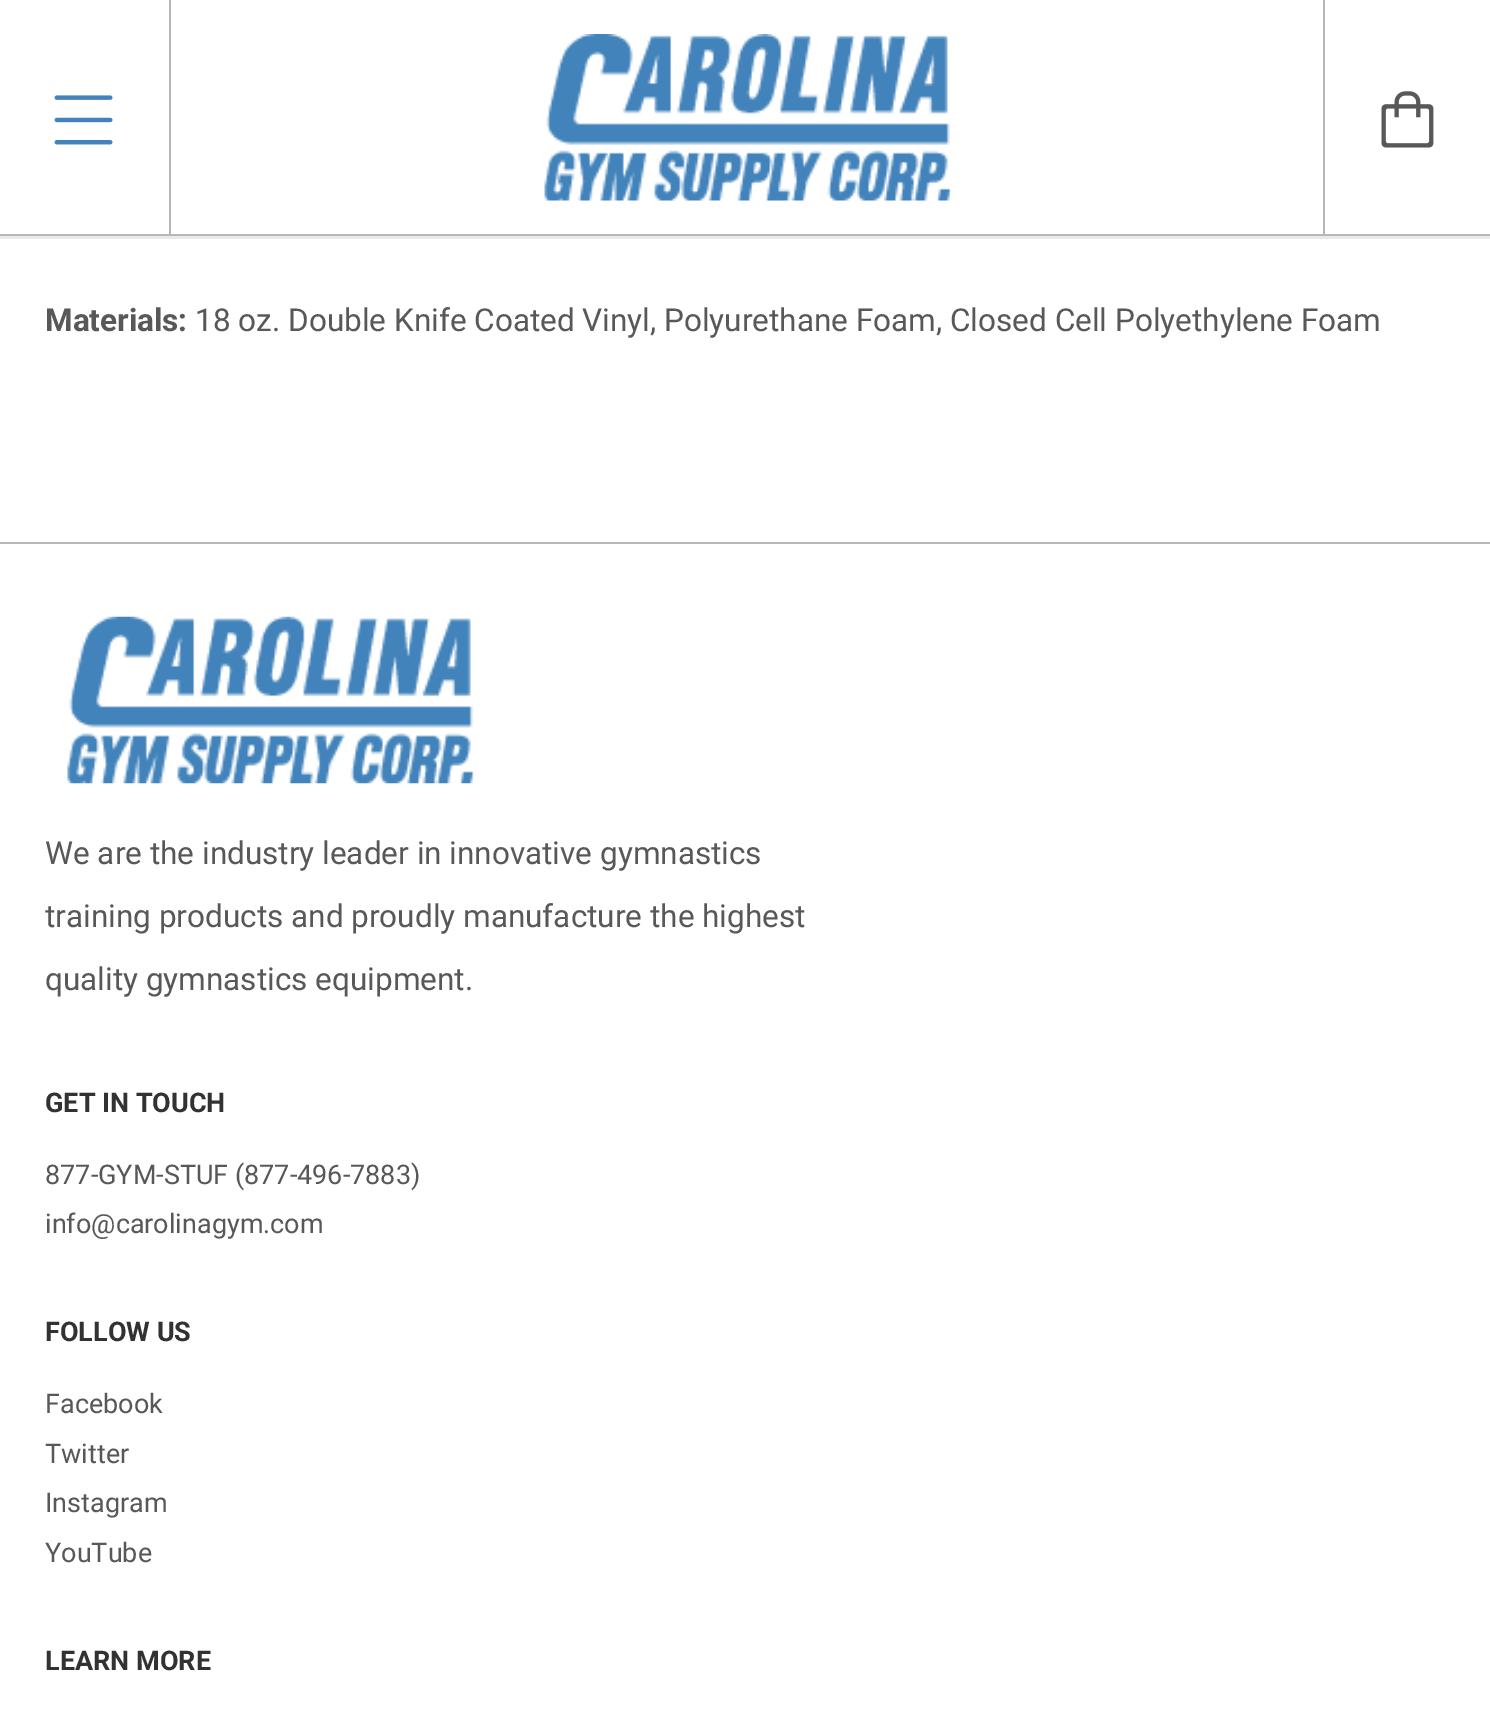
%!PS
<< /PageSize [1490 1731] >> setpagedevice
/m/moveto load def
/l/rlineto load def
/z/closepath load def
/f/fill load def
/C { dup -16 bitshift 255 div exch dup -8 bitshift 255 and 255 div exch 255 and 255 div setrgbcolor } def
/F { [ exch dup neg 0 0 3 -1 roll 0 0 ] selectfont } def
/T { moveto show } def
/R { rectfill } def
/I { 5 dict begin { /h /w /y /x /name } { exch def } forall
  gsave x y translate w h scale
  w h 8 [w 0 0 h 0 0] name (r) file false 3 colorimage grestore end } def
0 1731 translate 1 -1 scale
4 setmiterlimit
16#FFFFFF C
0 0 1490 1731 R
16#E9E9E9 C
0 236 m 0 3 l 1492 0 l 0 -237 l 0 234 l z f
16#B7B7B7 C
0 234 1490 2 R
(1.rgb) 54 95 59 50 I
169 0 2 234 R
(2.rgb) 544 34 408 167 I
1323 0 2 234 R
(3.rgb) 1381 91 53 57 I
/Roboto-Bold 31.5 F
16#585858 C
(Materials:) 45 331 T
/Roboto-Regular 31.5 F
(18 oz. Double Knife Coated Vinyl, Polyurethane Foam, Closed Cell Polyethylene Foam) 195 331 T
16#B7B7B7 C
0 542 1490 2 R
(4.rgb) 67 616 408 168 I
16#585858 C
(We are the industry leader in innovative gymnastics) 45 864 T
(training products and proudly manufacture the highest) 45 927 T
(quality gymnastics equipment.) 45 990 T
/Roboto-Bold 27 F
16#323232 C
(GET IN TOUCH) 45 1112 T
/Roboto-Regular 27 F
16#585858 C
(877-GYM-STUF \(877-496-7883\)) 45 1184 T
(info@carolinagym.com) 45 1233 T
/Roboto-Bold 27 F
16#323232 C
(FOLLOW US) 45 1341 T
/Roboto-Regular 27 F
16#585858 C
(Facebook) 45 1413 T
(Twitter) 45 1463 T
(Instagram) 45 1512 T
(YouTube) 45 1562 T
/Roboto-Bold 27 F
16#323232 C
(LEARN MORE) 45 1670 T
showpage
